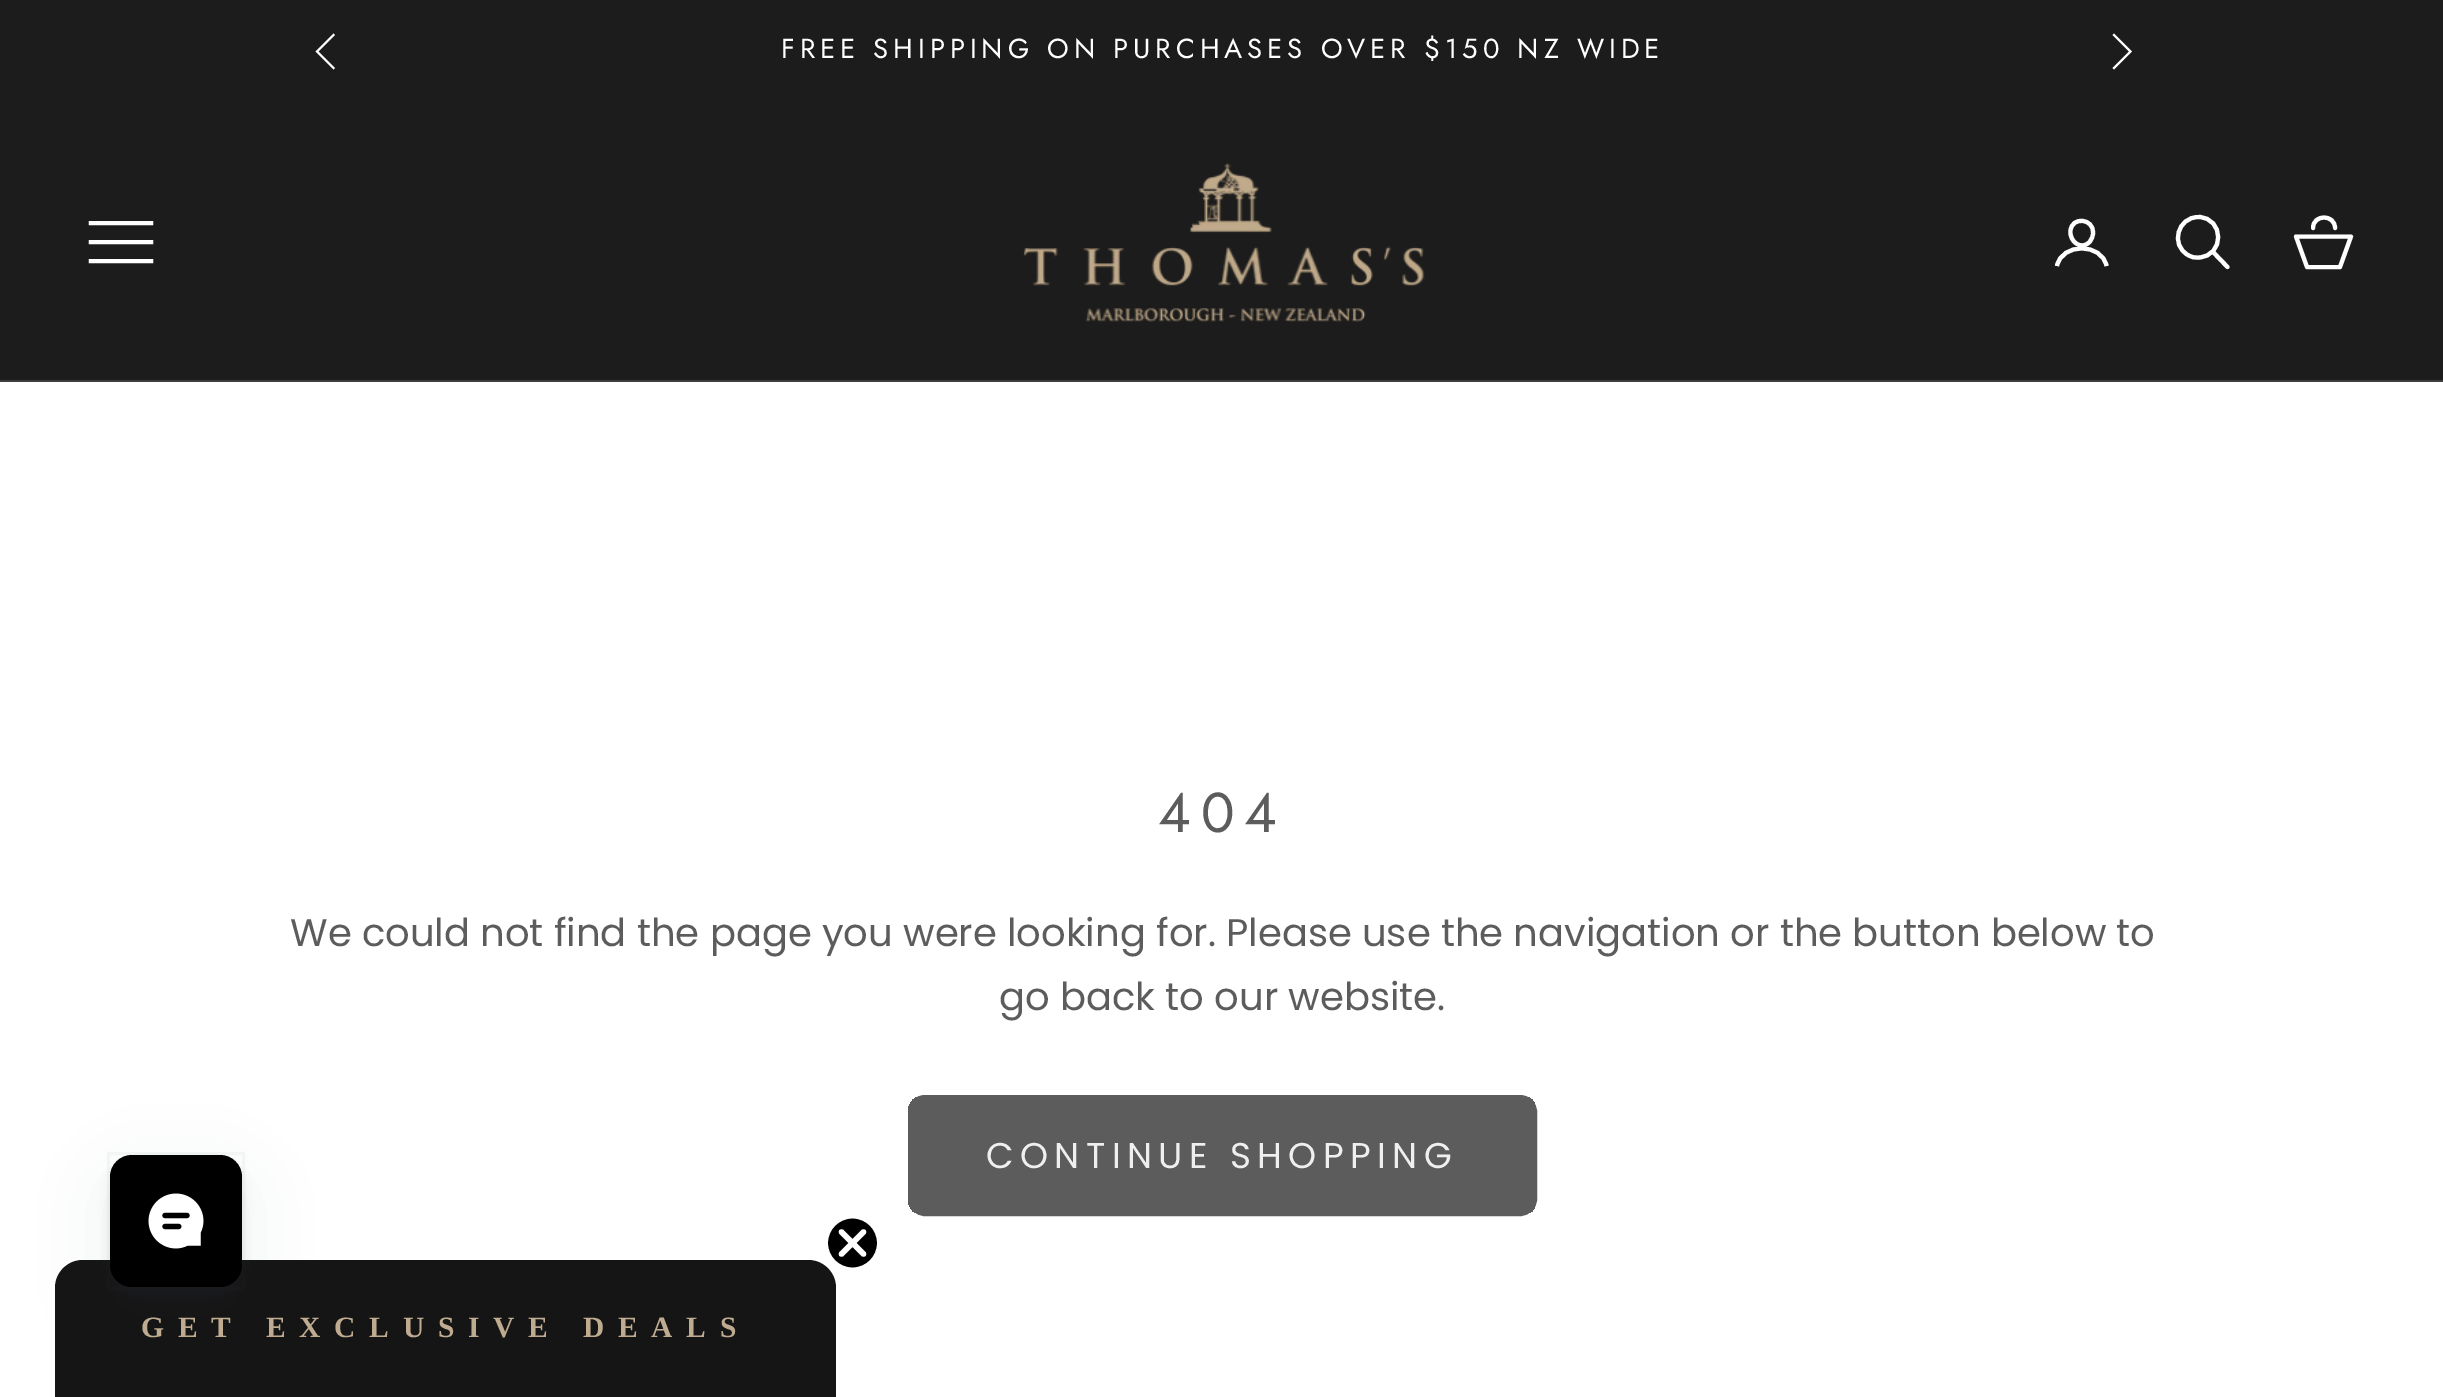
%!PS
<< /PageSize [2443 1397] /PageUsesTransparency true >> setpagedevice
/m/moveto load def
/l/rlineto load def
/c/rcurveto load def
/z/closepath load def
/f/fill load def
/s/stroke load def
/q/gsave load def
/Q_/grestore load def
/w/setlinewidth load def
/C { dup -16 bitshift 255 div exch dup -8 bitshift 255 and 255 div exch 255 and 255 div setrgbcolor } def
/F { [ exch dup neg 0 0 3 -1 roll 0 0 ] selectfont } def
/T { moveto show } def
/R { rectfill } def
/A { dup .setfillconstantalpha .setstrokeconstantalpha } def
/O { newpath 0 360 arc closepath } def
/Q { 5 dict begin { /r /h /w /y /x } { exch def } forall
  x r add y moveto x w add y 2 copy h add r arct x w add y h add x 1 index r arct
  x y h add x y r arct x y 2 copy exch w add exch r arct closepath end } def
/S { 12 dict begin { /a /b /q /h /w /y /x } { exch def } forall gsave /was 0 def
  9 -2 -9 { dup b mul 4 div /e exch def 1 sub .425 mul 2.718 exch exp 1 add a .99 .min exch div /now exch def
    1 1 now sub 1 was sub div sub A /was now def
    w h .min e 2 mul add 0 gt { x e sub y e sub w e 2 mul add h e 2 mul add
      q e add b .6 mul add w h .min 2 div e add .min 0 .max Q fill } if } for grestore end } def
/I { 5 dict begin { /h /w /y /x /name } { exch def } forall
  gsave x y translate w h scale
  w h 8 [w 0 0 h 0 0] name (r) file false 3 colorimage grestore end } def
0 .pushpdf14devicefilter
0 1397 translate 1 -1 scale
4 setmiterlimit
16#FFFFFF C
0 0 2443 1397 R
16#1C1C1C C
0 0 2443 380 R
16#FFFFFF C
2.1 w
2 setlinecap
333.5 35 m -16.5 16.5 l 16.5 16.5 l s
/Jost-Regular 27.5 F
781 58 m 4.95 0 (FREE SHIPPING ON PURCHASES OVER $150 NZ WIDE) ashow
2114 68 m 16.5 -16.5 l -16.5 -16.5 l s
16#3E3E3E C
0 380 2443 2 R
16#FFFFFF C
4.1 w
91 261 m 60 0 l 91 242 m 60 0 l 91 223 m 60 0 l s
(1.rgb) 1023 163 402 159 I
1 setlinecap
1 setlinejoin
2093 233 m 0 3.5 -1.5 6.5 -3.5 9 c -8.5 9 -20.5 -1 -19 -11.5 c 1.5 -14.5 23.5 -12 22.5 2.5 c z s
0 setlinecap
0 setlinejoin
2057 266 m 4.5 -23.5 45 -23.5 49.5 0 c s
2198.5 217 m -21 0 -28.5 28 -10.5 38 c 3 2 6.5 3 10.5 2.5 c 26.5 -1 26 -40 0 -40.5 c z s
1 setlinecap
2213.5 252.5 m 14 14.5 l s
1 setlinejoin
2296 236.5 m 55 0 l -11 30.5 l -33 0 l z 2335 228 m 0 -14 -22 -14 -22 0 c s
/Jost-Regular 56 F
16#5C5C5C C
1158 832 m 10 0 (404) ashow
/Poppins-Regular 38.5 F
(We could not find the page you were looking for. Please use the navigation or the button below to) 290 946 T
(go back to our website.) 999 1010 T
q
908 1095 629 121 17 Q clip newpath
908 1097 627 116 R
Q_
3 w
0 setlinecap
0 setlinejoin
909.5 1096.5 626 118 15.5 Q s
/Poppins-Regular 35.75 F
16#EFEFEF C
986 1168 m 6.4 0 (CONTINUE SHOPPING) ashow
16#151515 C
83 1260 m 725 0 l 15.5 0 28 12.5 28 28 c 0 109 l -781 0 l 0 -109 l 0 -15.5 12.5 -28 28 -28 c z f
16#373F47 C
110 1177 132 132 22 33 .08 S
110 1166 132 132 22 5.5 .08 S
0.04 A
108.5 1153.5 135 135 rectstroke
1 A
16#000000 C
110 1155 132 132 22 Q f
(2.rgb) 148 1193 56 56 I
852.5 1243 26 O q f Q_
16#FFFFFF C
2.8 w
s
5.5 w
1 setlinecap
1 setlinejoin
841.5 1232 m 22 22 l 841.5 1254 m 22 -22 l z s
/LiberationSerif-Bold 29.5 F
16#BFAB8F C
141 1337 m 13.75 0 (GET EXCLUSIVE DEALS) ashow
.poppdf14devicefilter showpage
